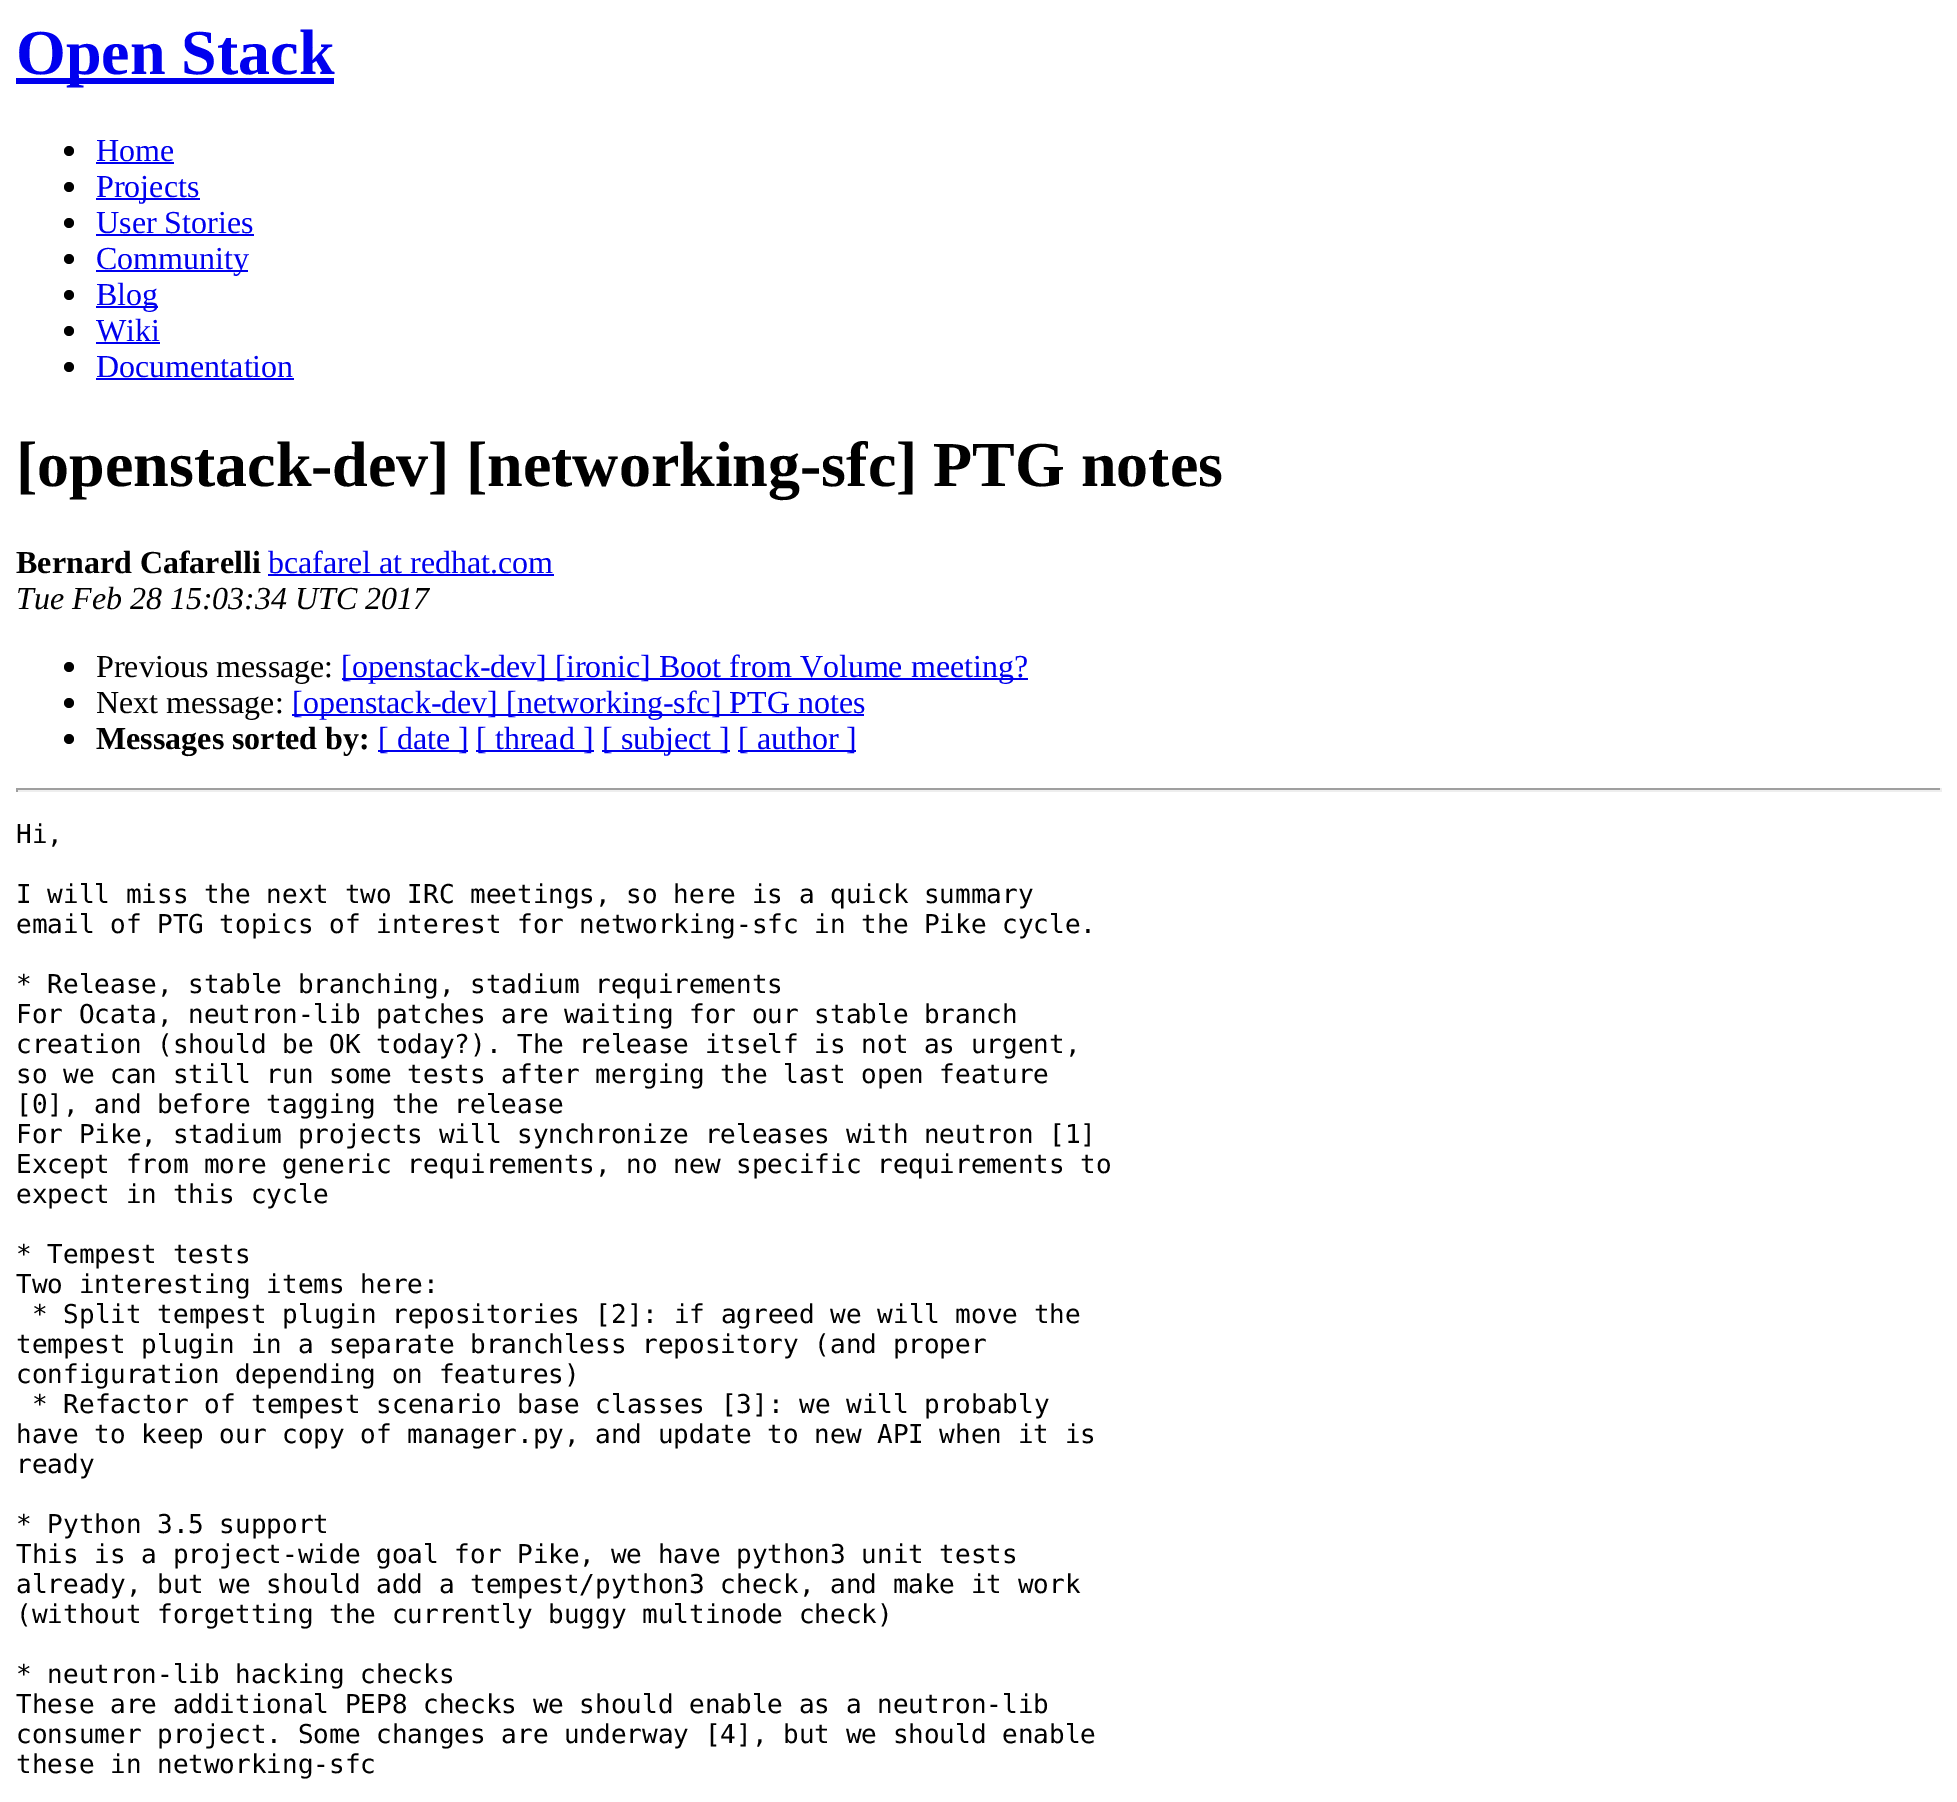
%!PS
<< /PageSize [1957 1802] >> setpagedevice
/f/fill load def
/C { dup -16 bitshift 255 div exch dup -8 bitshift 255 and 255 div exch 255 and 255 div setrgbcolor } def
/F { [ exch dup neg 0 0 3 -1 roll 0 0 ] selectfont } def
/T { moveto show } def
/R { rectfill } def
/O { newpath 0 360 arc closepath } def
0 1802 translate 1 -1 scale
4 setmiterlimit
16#FFFFFF C
0 0 1957 1802 R
16#0000EE C
16 78 318 6 R
/LiberationSerif-Bold 64 F
(Open Stack) 16 74 T
16#000000 C
69 151 5 O f
/LiberationSerif-Regular 32 F
16#0000EE C
(Home) 96 161 T
96 162 78 2 R
16#000000 C
69 187 5 O f
16#0000EE C
96 198 104 2 R
(Projects) 96 197 T
16#000000 C
69 223 5 O f
16#0000EE C
(User Stories) 96 233 T
96 234 158 2 R
16#000000 C
69 259 5 O f
16#0000EE C
96 270 152 2 R
(Community) 96 269 T
16#000000 C
69 295 5 O f
16#0000EE C
96 306 62 2 R
(Blog) 96 305 T
16#000000 C
69 331 5 O f
16#0000EE C
(Wiki) 96 341 T
96 342 64 2 R
16#000000 C
69 367 5 O f
16#0000EE C
(Documentation) 96 377 T
96 378 198 2 R
/LiberationSerif-Bold 64 F
16#000000 C
([openstack-dev] [networking-sfc] PTG notes) 16 486 T
/LiberationSerif-Bold 32 F
(Bernard Cafarelli) 16 573 T
/LiberationSerif-Regular 32 F
16#0000EE C
(bcafarel at redhat.com) 268 573 T
268 574 286 2 R
/LiberationSerif-Italic 32 F
16#000000 C
(Tue Feb 28 15:03:34 UTC 2017) 16 609 T
69 667 5 O f
/LiberationSerif-Regular 32 F
(Previous message:) 96 677 T
16#0000EE C
342 678 686 2 R
([openstack-dev] [ironic] Boot from Volume meeting?) 341 677 T
16#000000 C
69 703 5 O f
(Next message:) 96 713 T
16#0000EE C
292 714 572 2 R
([openstack-dev] [networking-sfc] PTG notes) 292 713 T
16#000000 C
69 739 5 O f
/LiberationSerif-Bold 32 F
(Messages sorted by:) 96 749 T
16#0000EE C
378 750 90 2 R
/LiberationSerif-Regular 32 F
([ date ]) 378 749 T
476 750 118 2 R
([ thread ]) 476 749 T
602 750 128 2 R
([ subject ]) 602 749 T
738 750 118 2 R
([ author ]) 738 749 T
16#9F9F9F C
16 788 1926 2 R
16#EEEEEE C
1940 788 2 4 R
16 790 1926 2 R
16#9F9F9F C
16 788 2 4 R
/DejaVuSansMono-Regular 26 F
16#000000 C
(Hi,) 16 843 T
(I will miss the next two IRC meetings, so here is a quick summary) 16 903 T
(email of PTG topics of interest for networking-sfc in the Pike cycle.) 16 933 T
(* Release, stable branching, stadium requirements) 16 993 T
(For Ocata, neutron-lib patches are waiting for our stable branch) 16 1023 T
(creation \(should be OK today?\). The release itself is not as urgent,) 16 1053 T
(so we can still run some tests after merging the last open feature) 16 1083 T
([0], and before tagging the release) 16 1113 T
(For Pike, stadium projects will synchronize releases with neutron [1]) 16 1143 T
(Except from more generic requirements, no new specific requirements to) 16 1173 T
(expect in this cycle) 16 1203 T
(* Tempest tests) 16 1263 T
(Two interesting items here:) 16 1293 T
(* Split tempest plugin repositories [2]: if agreed we will move the) 32 1323 T
(tempest plugin in a separate branchless repository \(and proper) 16 1353 T
(configuration depending on features\)) 16 1383 T
(* Refactor of tempest scenario base classes [3]: we will probably) 32 1413 T
(have to keep our copy of manager.py, and update to new API when it is) 16 1443 T
(ready) 16 1473 T
(* Python 3.5 support) 16 1533 T
(This is a project-wide goal for Pike, we have python3 unit tests) 16 1563 T
(already, but we should add a tempest/python3 check, and make it work) 16 1593 T
(\(without forgetting the currently buggy multinode check\)) 16 1623 T
(* neutron-lib hacking checks) 16 1683 T
(These are additional PEP8 checks we should enable as a neutron-lib) 16 1713 T
(consumer project. Some changes are underway [4], but we should enable) 16 1743 T
(these in networking-sfc) 16 1773 T
showpage
